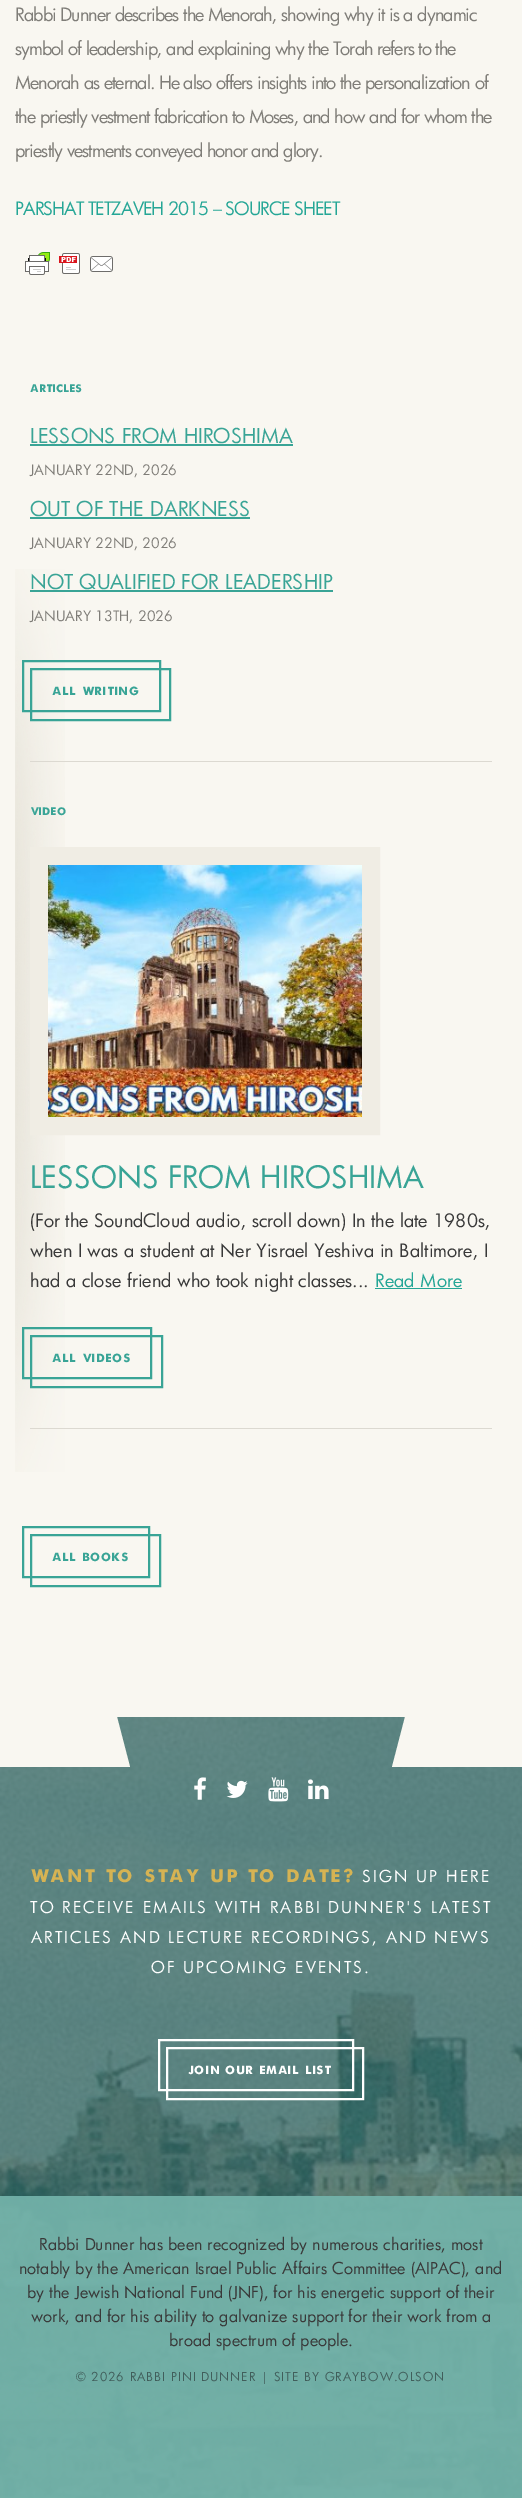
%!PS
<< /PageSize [522 2498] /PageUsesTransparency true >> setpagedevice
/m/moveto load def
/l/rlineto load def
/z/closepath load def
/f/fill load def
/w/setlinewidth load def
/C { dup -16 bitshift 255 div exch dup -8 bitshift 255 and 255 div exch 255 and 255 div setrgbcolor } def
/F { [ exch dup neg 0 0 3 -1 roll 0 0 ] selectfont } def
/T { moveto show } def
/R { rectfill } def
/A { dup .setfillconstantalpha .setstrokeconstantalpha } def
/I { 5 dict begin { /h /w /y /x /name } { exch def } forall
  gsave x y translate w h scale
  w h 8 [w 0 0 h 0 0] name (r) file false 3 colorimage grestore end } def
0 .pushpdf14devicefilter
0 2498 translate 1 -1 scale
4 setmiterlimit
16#F9F7F1 C
0 0 522 2498 R
/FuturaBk-Regular 18 F
16#7F7D78 C
15 21 m -1 0 (Rabbi Dunner describes the Menorah, showing why it is a dynamic) ashow
15 55 m -1 0 (symbol of leadership, and explaining why the Torah refers to the) ashow
15 89 m -1 0 (Menorah as eternal. He also offers insights into the personalization of) ashow
15 123 m -1 0 (the priestly vestment fabrication to Moses, and how and for whom the) ashow
15 157 m -1 0 (priestly vestments conveyed honor and glory.) ashow
16#25A696 C
15 215 m -1 0 (PARSHAT TETZAVEH 2015 – SOURCE SHEET) ashow
(1.rgb) 25 252 88 23 I
(2.rgb) 15 569 50 903 I
16#DCD9D1 C
30 761 462 1 R
/Futura-Bold 12 F
16#39A496 C
(ARTICLES) 30 392 T
/FuturaBk-Regular 20 F
(LESSONS FROM HIROSHIMA) 30 443 T
30 444 263 2 R
/FuturaBk-Regular 14 F
16#7F7D78 C
(JANUARY 22ND, 2026) 30 475 T
/FuturaBk-Regular 20 F
16#39A496 C
(OUT OF THE DARKNESS) 30 516 T
30 517 220 2 R
/FuturaBk-Regular 14 F
16#7F7D78 C
(JANUARY 22ND, 2026) 30 548 T
/FuturaBk-Regular 20 F
16#39A496 C
(NOT QUALIFIED FOR LEADERSHIP) 30 589 T
30 590 303 2 R
/FuturaBk-Regular 14 F
16#7F7D78 C
(JANUARY 13TH, 2026) 30 621 T
16#39A496 C
2 w
31 669 139 51 rectstroke
23 661 137 50 rectstroke
/Futura-Bold 13 F
52 695 m .5 0 (ALL WRITING) ashow
16#DCD9D1 C
30 1428 462 1 R
/Futura-Bold 12 F
16#39A496 C
(VIDEO) 30 815 T
16#F0EDE4 C
18 w
39 856 332 270 rectstroke
(3.rgb) 48 865 314 252 I
/FuturaBk-Regular 30 F
16#39A496 C
(LESSONS FROM HIROSHIMA) 30 1188 T
/FuturaBk-Regular 18 F
16#393939 C
(\(For the SoundCloud audio, scroll down\) In the late 1980s,) 30 1227 T
(when I was a student at Ner Yisrael Yeshiva in Baltimore, I) 30 1257 T
(had a close friend who took night classes...) 30 1287 T
16#25A696 C
(Read More) 375 1287 T
375 1288 87 1 R
16#39A496 C
2 w
31 1336 131 51 rectstroke
23 1328 128 50 rectstroke
/Futura-Bold 13 F
52 1362 m .5 0 (ALL VIDEOS) ashow
31 1535 129 51 rectstroke
23 1527 126 50 rectstroke
52 1561 m .5 0 (ALL BOOKS) ashow
(4.rgb) 0 1717 522 781 I
16#F9F7F1 C
-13 1717 m 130 0 l 13 50 l -130 0 l z f
405 1717 m 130 0 l -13 50 l -130 0 l z f
(5.rgb) 194 1777 12 23 I
(6.rgb) 226 1780 22 18 I
(7.rgb) 268 1777 21 25 I
(8.rgb) 308 1779 21 21 I
/Futura-Bold 20 F
16#D6B353 C
30 1882 m 2 0 (WANT TO STAY UP TO DATE?) ashow
/FuturaBk-Regular 16 F
16#FFFFFF C
362 1882 m 2 0 (SIGN UP HERE) ashow
30 1913 m 2 0 (TO RECEIVE EMAILS WITH RABBI DUNNER'S LATEST) ashow
31 1943 m 2 0 (ARTICLES AND LECTURE RECORDINGS, AND NEWS) ashow
151 1973 m 2 0 (OF UPCOMING EVENTS.) ashow
167 2048 196 51 rectstroke
159 2040 194 50 rectstroke
/Futura-Bold 13 F
188 2074 m .5 0 (JOIN OUR EMAIL LIST) ashow
0.92 A
16#73B3AA C
0 2196 522 302 R
/FuturaBk-Regular 16 F
1 A
16#393939 C
(Rabbi Dunner has been recognized by numerous charities, most) 39 2250 T
(notably by the American Israel Public Affairs Committee \(AIPAC\), and) 19 2274 T
(by the Jewish National Fund \(JNF\), for his energetic support of their) 27 2298 T
(work, and for his ability to galvanize support for their work from a) 31 2322 T
(broad spectrum of people.) 169 2346 T
/FuturaBk-Regular 12 F
16#415E5B C
76 2381 m 1 0 (© 2026 RABBI PINI DUNNER | SITE BY GRAYBOW.OLSON) ashow
.poppdf14devicefilter showpage
